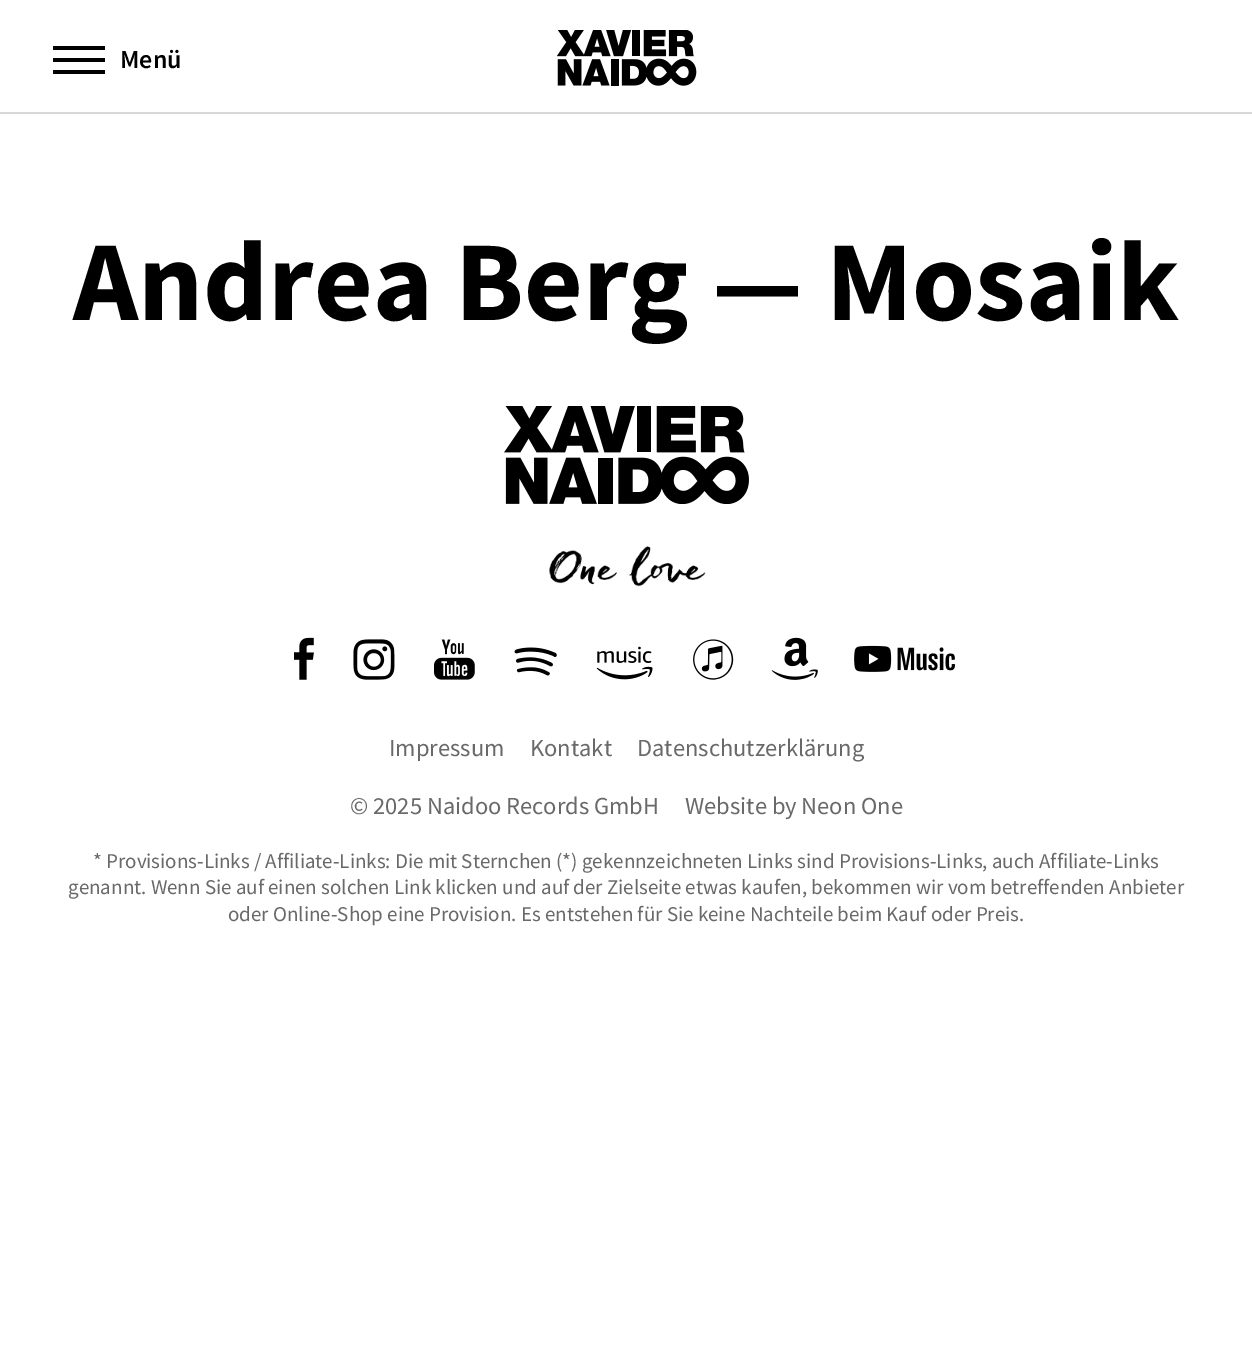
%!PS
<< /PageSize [1252 1351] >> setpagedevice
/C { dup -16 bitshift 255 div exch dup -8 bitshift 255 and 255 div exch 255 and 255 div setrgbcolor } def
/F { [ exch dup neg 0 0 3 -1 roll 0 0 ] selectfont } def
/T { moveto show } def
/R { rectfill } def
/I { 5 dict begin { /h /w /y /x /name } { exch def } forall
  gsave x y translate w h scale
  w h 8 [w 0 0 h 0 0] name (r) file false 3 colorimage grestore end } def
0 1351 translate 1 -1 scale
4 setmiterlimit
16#FFFFFF C
0 0 1252 1351 R
16#D8D8D8 C
0 112 1252 2 R
16#000000 C
53 46 52 4 R
53 58 52 4 R
53 70 52 4 R
/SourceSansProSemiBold-SemiBold 26 F
(Menü) 120 68 T
(1.rgb) 557 30 140 56 I
/SourceSansPro-Bold 113.75 F
(Andrea Berg — Mosaik) 73 320 T
(2.rgb) 504 406 245 98 I
(3.rgb) 549 546 157 41 I
(4.rgb) 294 637 20 43 I
(5.rgb) 353 639 42 41 I
(6.rgb) 434 639 41 41 I
(7.rgb) 514 647 43 29 I
(8.rgb) 596 646 57 34 I
(9.rgb) 693 639 41 41 I
(10.rgb) 771 637 47 43 I
(11.rgb) 854 645 102 27 I
/SourceSansPro-Regular 24.5 F
16#696969 C
(Impressum) 389 756 T
(Kontakt) 530 756 T
(Datenschutzerklärung) 637 756 T
(© 2025 Naidoo Records GmbH) 350 814 T
(Website by Neon One) 685 814 T
/SourceSansPro-Regular 21 F
(* Provisions-Links / Affiliate-Links: Die mit Sternchen \(*\) gekennzeichneten Links sind Provisions-Links, auch Affiliate-Links) 93 868 T
(genannt. Wenn Sie auf einen solchen Link klicken und auf der Zielseite etwas kaufen, bekommen wir vom betreffenden Anbieter) 68 894 T
(oder Online-Shop eine Provision. Es entstehen für Sie keine Nachteile beim Kauf oder Preis.) 228 921 T
showpage
